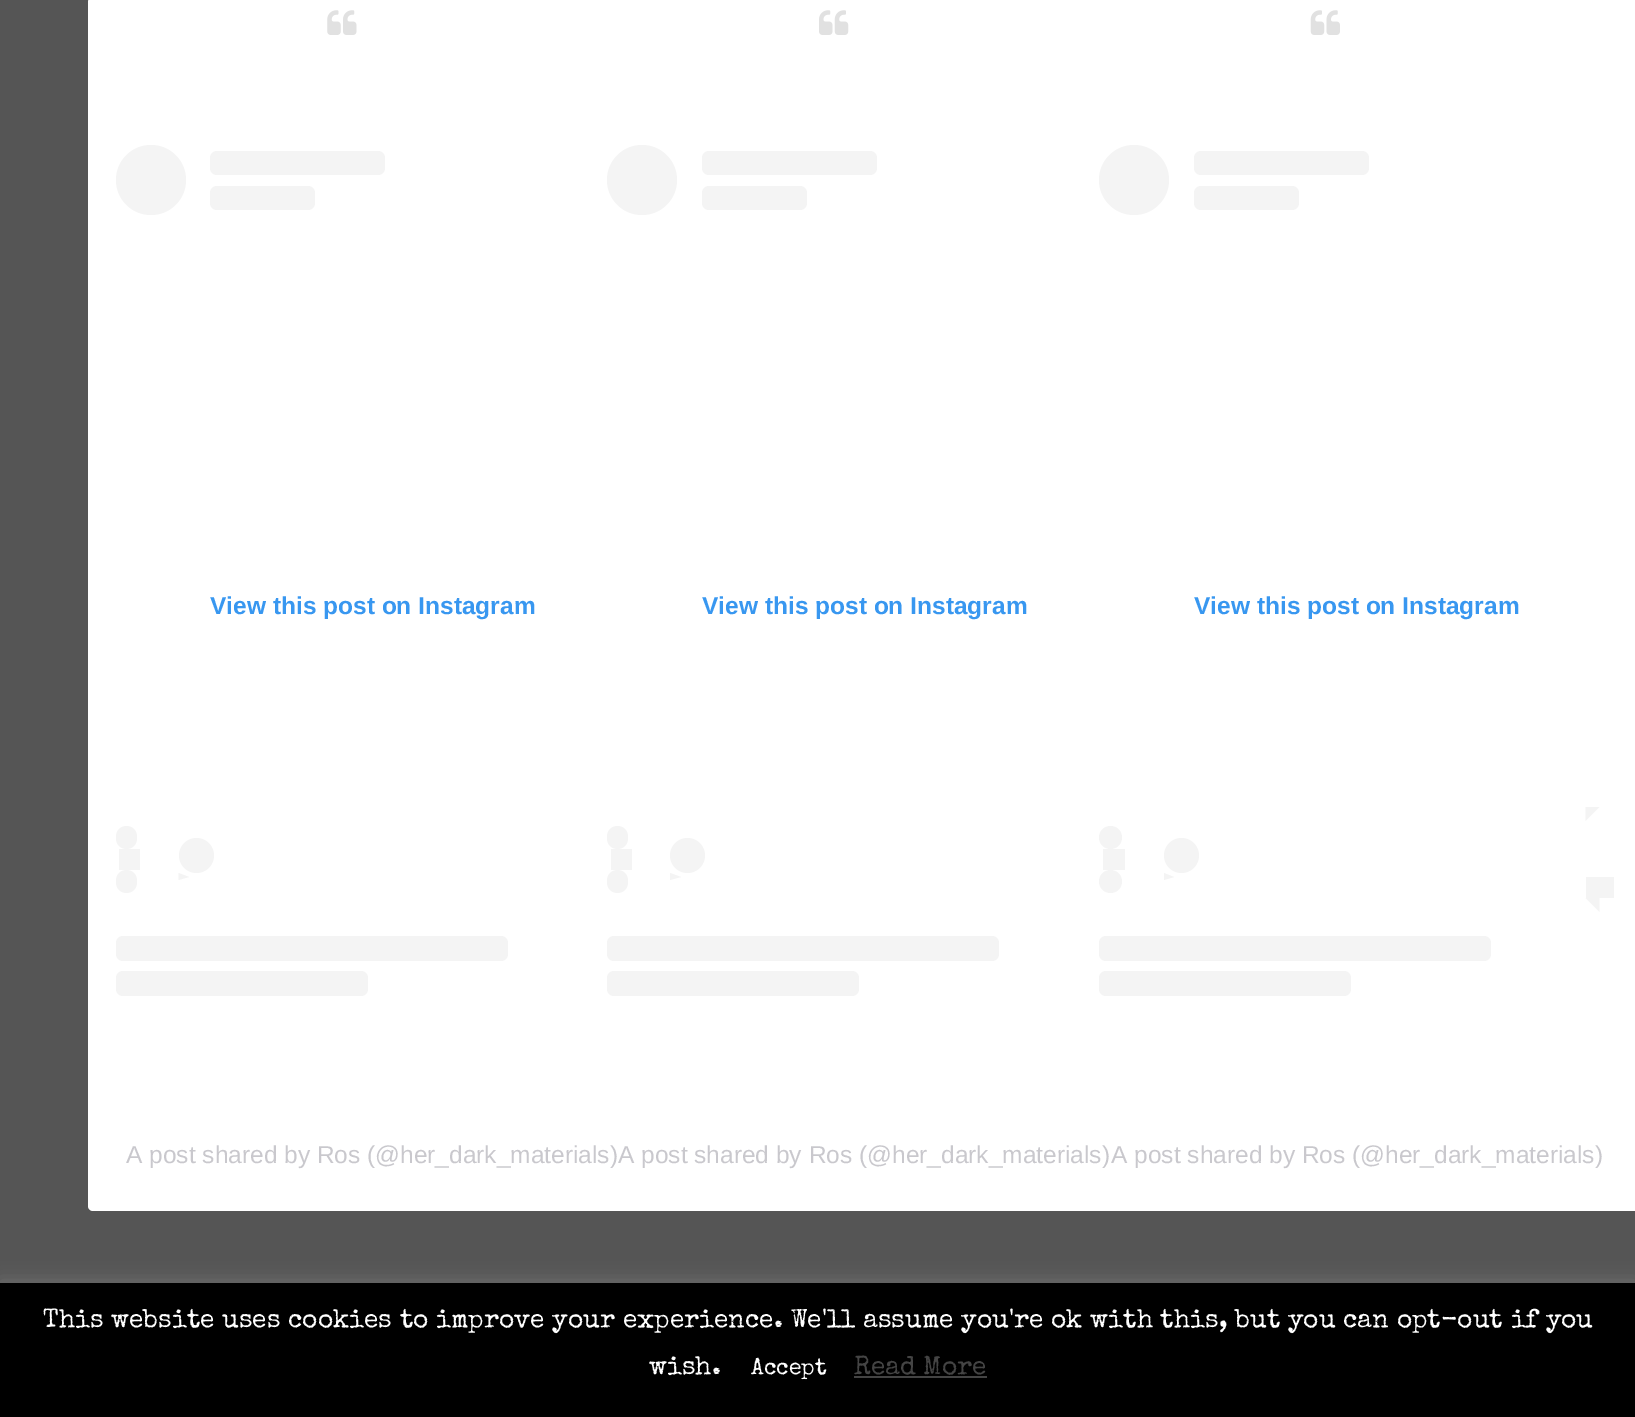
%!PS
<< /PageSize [1635 1417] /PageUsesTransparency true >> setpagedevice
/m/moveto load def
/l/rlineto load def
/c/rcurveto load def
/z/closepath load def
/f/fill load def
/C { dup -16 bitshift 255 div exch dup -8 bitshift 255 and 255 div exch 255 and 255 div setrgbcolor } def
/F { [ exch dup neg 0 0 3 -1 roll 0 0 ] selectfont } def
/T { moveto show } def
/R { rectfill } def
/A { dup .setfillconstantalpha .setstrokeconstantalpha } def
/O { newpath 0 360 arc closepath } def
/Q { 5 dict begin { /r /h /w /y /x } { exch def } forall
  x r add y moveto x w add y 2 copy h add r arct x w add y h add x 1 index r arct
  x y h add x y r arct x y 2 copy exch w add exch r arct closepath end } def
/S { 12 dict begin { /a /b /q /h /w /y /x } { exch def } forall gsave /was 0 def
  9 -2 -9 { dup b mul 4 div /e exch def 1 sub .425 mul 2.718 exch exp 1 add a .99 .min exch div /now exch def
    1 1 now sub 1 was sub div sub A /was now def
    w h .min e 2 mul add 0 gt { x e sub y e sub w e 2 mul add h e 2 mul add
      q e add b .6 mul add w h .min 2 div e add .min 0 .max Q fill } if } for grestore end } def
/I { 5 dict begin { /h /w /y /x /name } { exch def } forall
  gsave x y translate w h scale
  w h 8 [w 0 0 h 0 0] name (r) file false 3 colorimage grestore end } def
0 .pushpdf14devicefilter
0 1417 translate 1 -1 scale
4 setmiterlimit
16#555555 C
0 0 1635 1417 R
16#FFFFFF C
88 -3 570 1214 5 Q f
(1.rgb) 327 10 30 25 I
16#F4F4F4 C
151 180 35 O f
210 151 175 24 7 Q f
210 186 105 24 7 Q f
/LiberationSans-Bold 24.5 F
16#3897F0 C
(View this post on Instagram) 210 614 T
16#F4F4F4 C
116 826 21 23 10.5 Q f
119 849 21 21 R
116 870 21 23 10.5 Q f
196.5 855.5 17.5 O f
178.5 880 m 0 -7 l 10.5 4 l z f
116 936 392 25 7 Q f
116 971 252 25 7 Q f
16#FFFFFF C
579 -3 571 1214 5 Q f
1076 -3 m 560 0 l 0 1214 l -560 0 l -3 0 -5 -2 -5 -5 c 0 -1204 l 0 -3 2 -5 5 -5 c z f
/LiberationSans-Regular 24.5 F
16#C9C8CD C
(A post shared by Ros \(@her_dark_materials\)A post shared by Ros \(@her_dark_materials\)) 126 1163 T
(2.rgb) 819 10 30 25 I
16#F4F4F4 C
642 180 35 O f
702 151 175 24 7 Q f
702 186 105 24 7 Q f
/LiberationSans-Bold 24.5 F
16#3897F0 C
(View this post on Instagram) 702 614 T
16#F4F4F4 C
607 826 21 23 10.5 Q f
611 849 21 21 R
607 870 21 23 10.5 Q f
687.5 855.5 17.5 O f
670 880 m 0 -7 l 11 4 l z f
607 936 392 25 7 Q f
607 971 252 25 7 Q f
(3.rgb) 1310 10 30 25 I
1134 180 35 O f
1194 151 175 24 7 Q f
1194 186 105 24 7 Q f
16#3897F0 C
(View this post on Instagram) 1194 614 T
16#F4F4F4 C
1110.5 837.5 11.5 O f
1103 849 22 21 R
1110.5 881.5 11.5 O f
1181.5 855.5 17.5 O f
1164 880 m 0 -7 l 10 4 l z f
1585.5 807 m 14 0 l -14 14 l z f
1586 877 28 21 R
1585.5 898 m 14 0 l 0 14 l z f
1099 936 392 25 7 Q f
1099 971 252 25 7 Q f
/LiberationSans-Regular 24.5 F
16#C9C8CD C
(A post shared by Ros \(@her_dark_materials\)) 1111 1163 T
16#ACABAB C
0 1281 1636 135 0 9 .3 S
16#000000 C
0 1283 1635 134 R
/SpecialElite-Regular 26.25 F
16#FFFFFF C
(This website uses cookies to improve your experience. We'll assume you're ok with this, but you can opt-out if you) 43 1327 T
(wish.) 649 1374 T
/SpecialElite-Regular 23 F
(Accept) 751 1374 T
/SpecialElite-Regular 26.25 F
16#444444 C
(Read More) 854 1374 T
854 1376 133 2 R
.poppdf14devicefilter showpage
